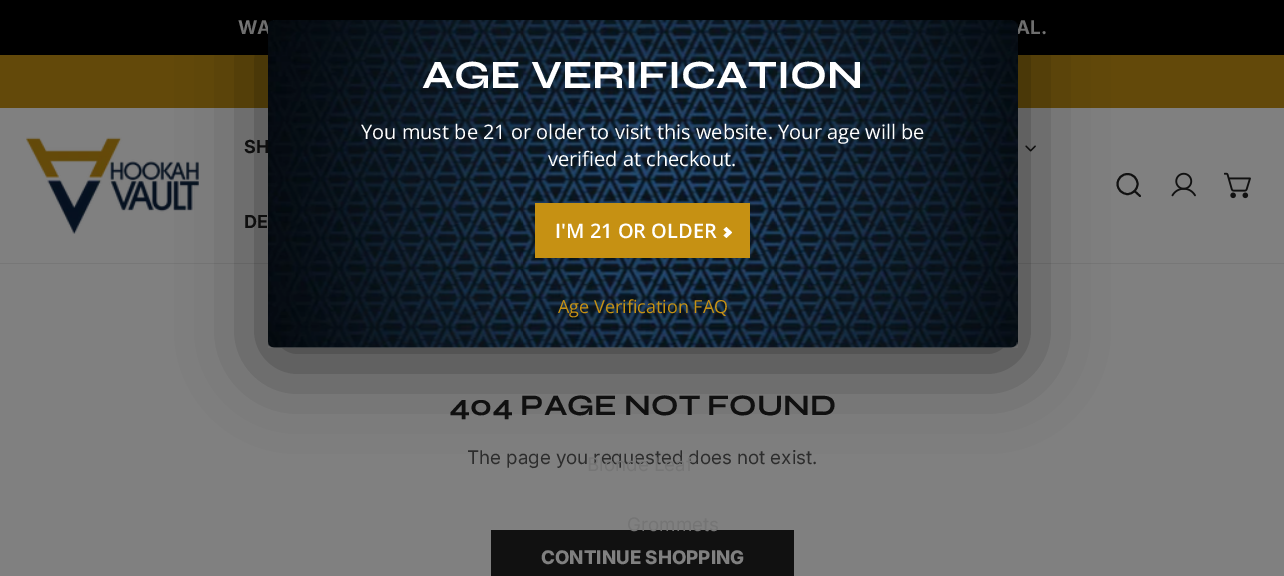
%!PS
<< /PageSize [1284 576] /PageUsesTransparency true >> setpagedevice
/m/moveto load def
/l/rlineto load def
/z/closepath load def
/f/fill load def
/s/stroke load def
/w/setlinewidth load def
/C { dup -16 bitshift 255 div exch dup -8 bitshift 255 and 255 div exch 255 and 255 div setrgbcolor } def
/F { [ exch dup neg 0 0 3 -1 roll 0 0 ] selectfont } def
/T { moveto show } def
/R { rectfill } def
/A { dup .setfillconstantalpha .setstrokeconstantalpha } def
/O { newpath 0 360 arc closepath } def
/Q { 5 dict begin { /r /h /w /y /x } { exch def } forall
  x r add y moveto x w add y 2 copy h add r arct x w add y h add x 1 index r arct
  x y h add x y r arct x y 2 copy exch w add exch r arct closepath end } def
/S { 12 dict begin { /a /b /q /h /w /y /x } { exch def } forall gsave /was 0 def
  9 -2 -9 { dup b mul 4 div /e exch def 1 sub .425 mul 2.718 exch exp 1 add a .99 .min exch div /now exch def
    1 1 now sub 1 was sub div sub A /was now def
    w h .min e 2 mul add 0 gt { x e sub y e sub w e 2 mul add h e 2 mul add
      q e add b .6 mul add w h .min 2 div e add .min 0 .max Q fill } if } for grestore end } def
/I { 5 dict begin { /h /w /y /x /name } { exch def } forall
  gsave x y translate w h scale
  w h 8 [w 0 0 h 0 0] name (r) file false 3 colorimage grestore end } def
0 .pushpdf14devicefilter
0 576 translate 1 -1 scale
4 setmiterlimit
16#808080 C
0 0 1284 576 R
16#000000 C
0 0 1284 55 R
/Inter-Bold 18.75 F
16#808080 C
(WA) 238 34 T
(AL.) 1016 34 T
16#63490A C
0 55 1284 53 R
16#777777 C
0 263 1284 1 R
(1.rgb) 26 137 173 97 I
/Inter-Bold 18 F
16#111111 C
(SH) 244 153 T
/Inter-Regular 18.75 F
16#2D2D2D C
467 464 m -.25 0 32 (The page you requested does not exist.) widthshow
16#757575 C
(Blonde Leaf) 587 471 T
/Inter-Bold 18 F
16#111111 C
(DE) 244 228 T
(2.rgb) 1025 145 11 7 I
491 530 303 46 R
/Inter-Regular 18.75 F
16#757575 C
(Grommets) 627 531 T
16#111111 C
1.9 w
1127.5 184 10 O s
1 setlinecap
1 setlinejoin
1140 196 m -5.5 -5 l s
(3.rgb) 1171 172 25 25 I
(4.rgb) 1224 172 27 27 I
/Syne-Bold 29.75 F
(404 PAGE NOT FOUND) 449 415 T
/Inter-ExtraBold 18.75 F
16#808080 C
(CONTINUE SHOPPING) 541 564 T
16#000000 C
264 29 757 335 10 40 .5 S
(5.rgb) 268 20 750 328 I
/Syne-Bold 40 F
16#FFFFFF C
(AGE VERIFICATION) 422 88 T
/OpenSans-Regular 20 F
(You must be 21 or older to visit this website. Your age will be) 361 139 T
(verified at checkout.) 548 166 T
16#000000 C
535 209 215 55 0 5 .1 S
16#C69113 C
535 203 215 55 R
/OpenSans-SemiBold 20 F
16#FFFFFF C
(I'M 21 OR OLDER) 555 238 T
723.5 229.5 m 3 -2.5 l 5.5 5.5 l -2.5 2.5 l z f
723.5 235.5 m 6 -5.5 l 2.5 2.5 l -5.5 5.5 l z f
/OpenSans-Regular 18 F
16#C69113 C
(Age Verification FAQ) 558 313 T
.poppdf14devicefilter showpage
